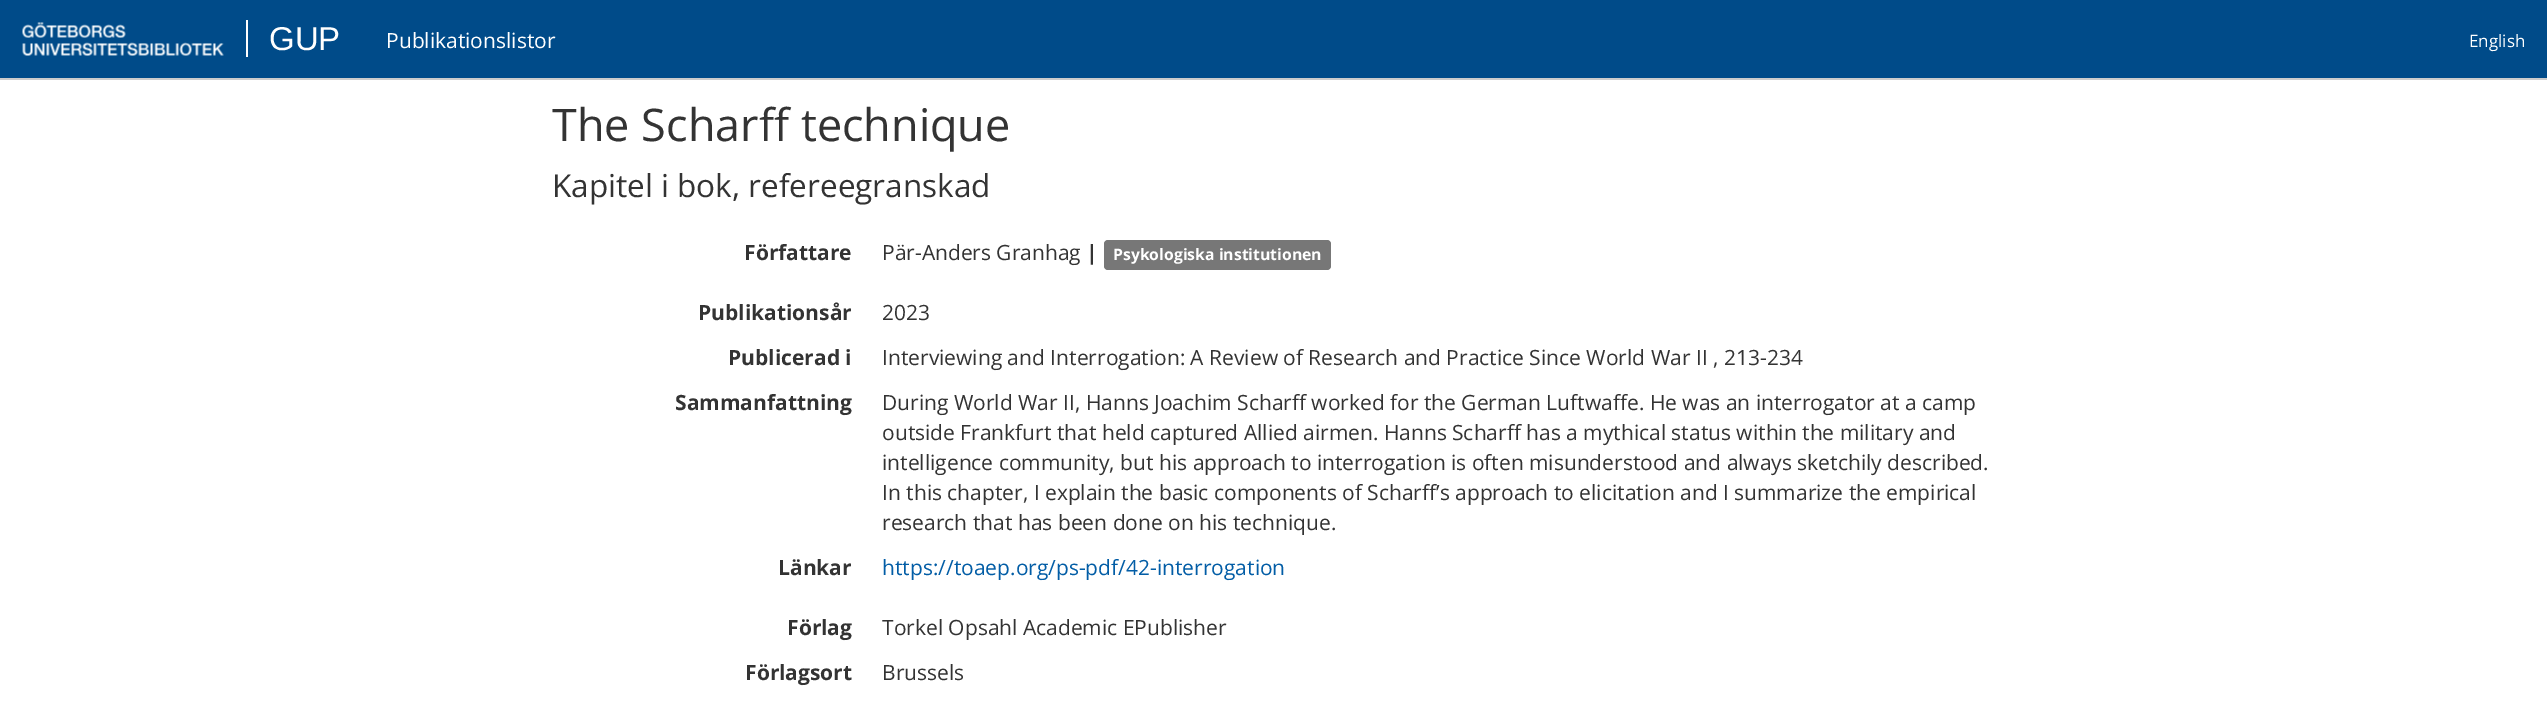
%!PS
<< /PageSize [2547 718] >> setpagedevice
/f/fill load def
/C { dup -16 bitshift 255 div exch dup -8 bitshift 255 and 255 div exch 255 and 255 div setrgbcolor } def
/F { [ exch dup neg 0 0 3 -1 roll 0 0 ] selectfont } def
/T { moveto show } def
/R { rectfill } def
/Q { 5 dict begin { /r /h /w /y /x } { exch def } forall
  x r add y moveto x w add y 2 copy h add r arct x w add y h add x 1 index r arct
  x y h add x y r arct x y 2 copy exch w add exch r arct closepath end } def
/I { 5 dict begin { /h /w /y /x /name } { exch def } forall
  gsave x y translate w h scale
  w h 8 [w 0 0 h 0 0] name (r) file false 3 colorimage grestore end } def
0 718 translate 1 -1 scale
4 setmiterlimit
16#FFFFFF C
0 0 2547 718 R
16#004B89 C
0 0 2547 78 R
16#CCCCCC C
0 78 2547 2 R
(1.rgb) 22 22 202 34 I
16#FFFFFF C
246 20 2 37 R
/LiberationSans-Regular 33 F
(GUP) 269 50 T
/OpenSans-Regular 21 F
(Publikationslistor) 386 48 T
/OpenSans-Regular 17 F
(English) 2469 47 T
/OpenSans-Regular 45 F
16#333333 C
(The Scharff technique) 552 141 T
/OpenSans-Regular 31.5 F
(Kapitel i bok, refereegranskad) 552 197 T
/OpenSans-Bold 21 F
(Författare) 744 260 T
/OpenSans-Regular 21 F
(Pär-Anders Granhag) 882 260 T
/OpenSans-Bold 21 F
(|) 1086 260 T
16#777777 C
1104 240 227 30 4 Q f
/OpenSans-Bold 15.75 F
16#FFFFFF C
(Psykologiska institutionen) 1113 260 T
/OpenSans-Bold 21 F
16#333333 C
(Publikationsår) 698 320 T
/OpenSans-Regular 21 F
(2023) 882 320 T
/OpenSans-Bold 21 F
(Publicerad i) 728 365 T
/OpenSans-Regular 21 F
(Interviewing and Interrogation: A Review of Research and Practice Since World War II , 213-234) 882 365 T
/OpenSans-Bold 21 F
(Sammanfattning) 675 410 T
/OpenSans-Regular 21 F
(During World War II, Hanns Joachim Scharff worked for the German Luftwaffe. He was an interrogator at a camp) 882 410 T
(outside Frankfurt that held captured Allied airmen. Hanns Scharff has a mythical status within the military and) 882 440 T
(intelligence community, but his approach to interrogation is often misunderstood and always sketchily described.) 882 470 T
(In this chapter, I explain the basic components of Scharff’s approach to elicitation and I summarize the empirical) 882 500 T
(research that has been done on his technique.) 882 530 T
/OpenSans-Bold 21 F
(Länkar) 778 575 T
/OpenSans-Regular 21 F
16#025DA6 C
(https://toaep.org/ps-pdf/42-interrogation) 882 575 T
/OpenSans-Bold 21 F
16#333333 C
(Förlag) 787 635 T
/OpenSans-Regular 21 F
(Torkel Opsahl Academic EPublisher) 882 635 T
/OpenSans-Bold 21 F
(Förlagsort) 745 680 T
/OpenSans-Regular 21 F
(Brussels) 882 680 T
showpage
